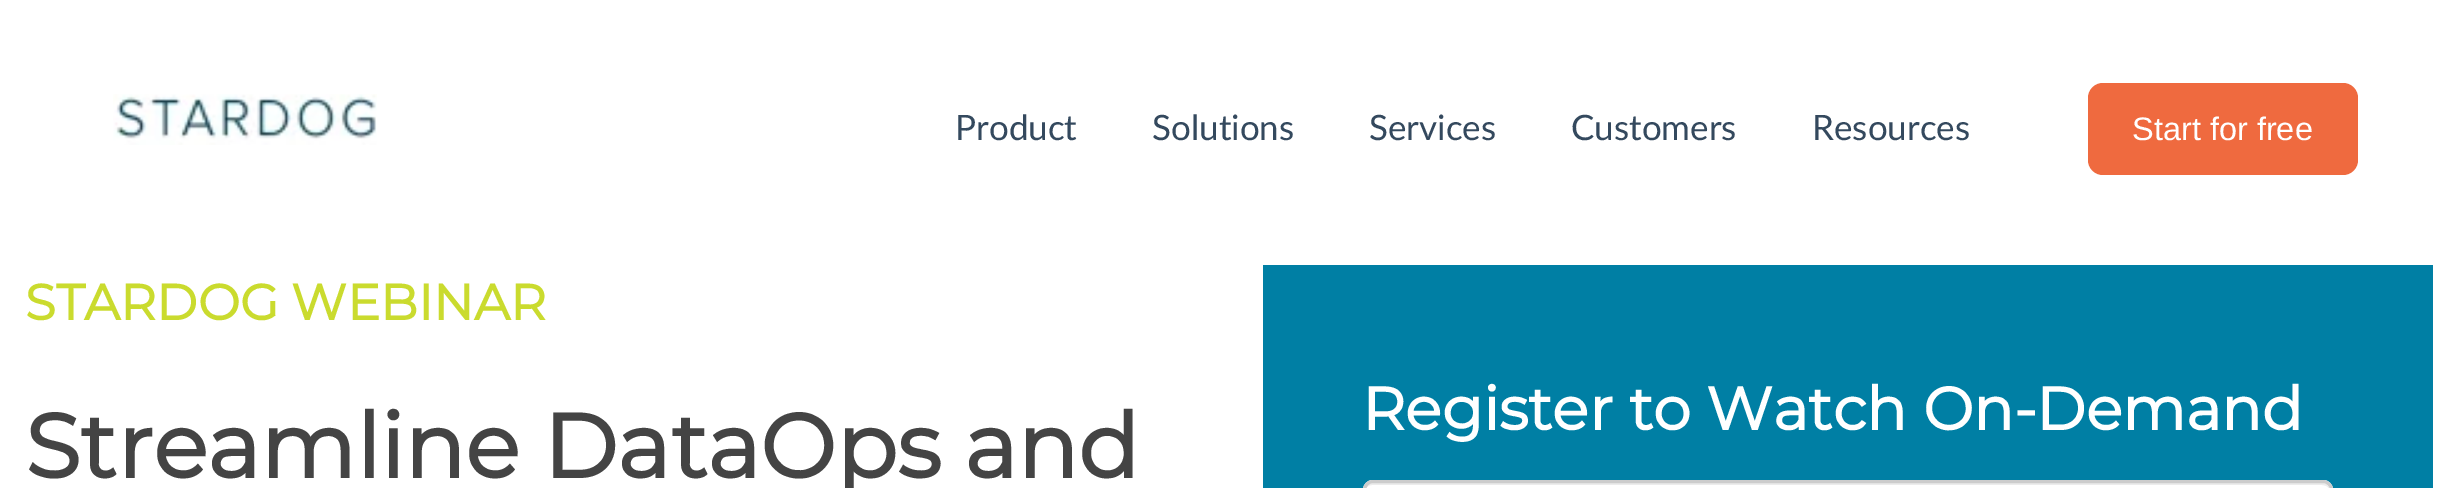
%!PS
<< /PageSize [2457 488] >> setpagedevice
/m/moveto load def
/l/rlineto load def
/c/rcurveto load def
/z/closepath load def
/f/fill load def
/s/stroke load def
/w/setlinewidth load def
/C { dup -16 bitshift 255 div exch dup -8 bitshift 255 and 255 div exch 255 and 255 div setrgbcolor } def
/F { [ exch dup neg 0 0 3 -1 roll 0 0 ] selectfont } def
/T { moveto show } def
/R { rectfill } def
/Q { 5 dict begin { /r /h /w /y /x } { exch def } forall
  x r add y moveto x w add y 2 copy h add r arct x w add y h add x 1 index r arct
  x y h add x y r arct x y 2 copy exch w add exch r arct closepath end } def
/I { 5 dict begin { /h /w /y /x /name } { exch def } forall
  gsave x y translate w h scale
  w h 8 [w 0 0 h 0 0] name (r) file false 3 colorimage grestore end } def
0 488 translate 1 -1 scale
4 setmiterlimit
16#FFFFFF C
0 0 2457 488 R
(1.rgb) 113 94 264 51 I
/Lato-Regular 35 F
16#34495E C
(Product) 955 140 T
(Solutions) 1152 140 T
(Services) 1369 140 T
(Customers) 1571 140 T
(Resources) 1812 140 T
16#EF6A3F C
2088 83 270 92 15 Q f
/LiberationSans-Regular 32.5 F
16#FFFFFF C
(Start for free) 2132 140 T
/Montserrat-Bold 50 F
16#CADB2E C
(STARDOG WEBINAR) 25 320 T
/Montserrat-Bold 90 F
16#444444 C
(Streamline DataOps and) 25 478 T
16#007FA4 C
1263 265 1170 223 R
/Montserrat-Bold 60 F
16#FFFFFF C
(Register to Watch On-Demand) 1362 430 T
1363 480 970 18 10 Q f
16#ECECEC C
1372 485 m 950 0 l 5 0 8 3 8 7 c 0 -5 -3 -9 -8 -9 c -949 0 l -5 0 -8 4 -8 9 c 0 -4 3 -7 7 -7 c z f
16#CCCCCC C
3 w
1364.5 481.5 967 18 8.5 Q s
showpage
